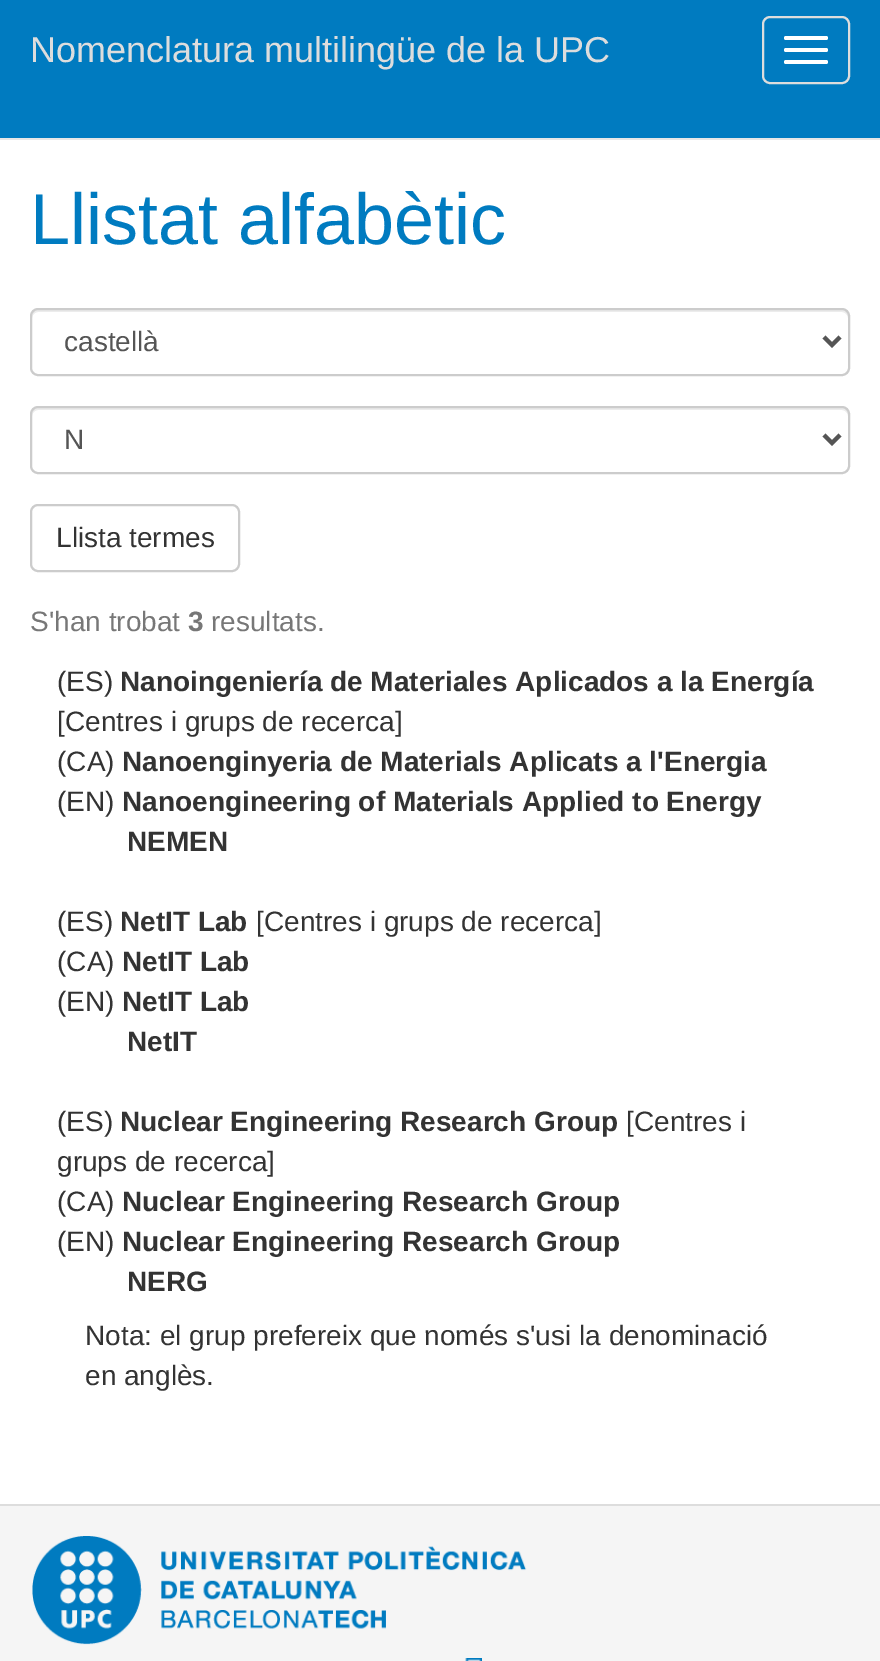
%!PS
<< /PageSize [880 1661] >> setpagedevice
/m/moveto load def
/l/rlineto load def
/c/rcurveto load def
/z/closepath load def
/f/fill load def
/s/stroke load def
/w/setlinewidth load def
/C { dup -16 bitshift 255 div exch dup -8 bitshift 255 and 255 div exch 255 and 255 div setrgbcolor } def
/F { [ exch dup neg 0 0 3 -1 roll 0 0 ] selectfont } def
/T { moveto show } def
/R { rectfill } def
/Q { 5 dict begin { /r /h /w /y /x } { exch def } forall
  x r add y moveto x w add y 2 copy h add r arct x w add y h add x 1 index r arct
  x y h add x y r arct x y 2 copy exch w add exch r arct closepath end } def
/I { 5 dict begin { /h /w /y /x /name } { exch def } forall
  gsave x y translate w h scale
  w h 8 [w 0 0 h 0 0] name (r) file false 3 colorimage grestore end } def
0 1661 translate 1 -1 scale
4 setmiterlimit
16#FFFFFF C
0 0 880 1661 R
16#007BC0 C
0 0 880 138 R
16#E7E7E7 C
0 138 880 2 R
/LiberationSans-Regular 36 F
16#DDDDDD C
(Nomenclatura multilingüe de la UPC) 30 62 T
2 w
763 17 86 66 7 Q s
16#FFFFFF C
784 36 44 4 2 Q f
784 48 44 4 2 Q f
784 60 44 4 2 Q f
/LiberationSans-Regular 72 F
16#007BC0 C
(Llistat alfabètic) 30 244 T
16#ECECEC C
38 312 m 804 0 l 3 0 6 3 6 6 c 0 -4 -1 -8 -6 -8 c -804 0 l -5 0 -6 4 -6 8 c 0 -3 3 -6 6 -6 c z f
16#CCCCCC C
31 309 818 66 7 Q s
16#555555 C
4 w
824 337 m 8 8 l 8 -8 l s
/LiberationSans-Regular 28 F
(castellà) 64 351 T
16#ECECEC C
38 410 m 804 0 l 3 0 6 3 6 6 c 0 -4 -1 -8 -6 -8 c -804 0 l -5 0 -6 4 -6 8 c 0 -3 3 -6 6 -6 c z f
16#CCCCCC C
2 w
31 407 818 66 7 Q s
16#555555 C
4 w
824 435 m 8 8 l 8 -8 l s
(N) 64 449 T
16#CCCCCC C
2 w
31 505 208 66 7 Q s
16#333333 C
(Llista termes) 56 547 T
16#777777 C
(S'han trobat) 30 631 T
/LiberationSans-Bold 28 F
(3) 188 631 T
/LiberationSans-Regular 28 F
(resultats.) 211 631 T
16#333333 C
(\(ES\)) 57 691 T
/LiberationSans-Bold 28 F
(Nanoingeniería de Materiales Aplicados a la Energía) 120 691 T
/LiberationSans-Regular 28 F
([Centres i grups de recerca]) 57 731 T
(\(CA\)) 57 771 T
/LiberationSans-Bold 28 F
(Nanoenginyeria de Materials Aplicats a l'Energia) 122 771 T
/LiberationSans-Regular 28 F
(\(EN\)) 57 811 T
/LiberationSans-Bold 28 F
(Nanoengineering of Materials Applied to Energy) 122 811 T
(NEMEN) 127 851 T
/LiberationSans-Regular 28 F
(\(ES\)) 57 931 T
/LiberationSans-Bold 28 F
(NetIT Lab) 120 931 T
/LiberationSans-Regular 28 F
([Centres i grups de recerca]) 256 931 T
(\(CA\)) 57 971 T
/LiberationSans-Bold 28 F
(NetIT Lab) 122 971 T
/LiberationSans-Regular 28 F
(\(EN\)) 57 1011 T
/LiberationSans-Bold 28 F
(NetIT Lab) 122 1011 T
(NetIT) 127 1051 T
/LiberationSans-Regular 28 F
(\(ES\)) 57 1131 T
/LiberationSans-Bold 28 F
(Nuclear Engineering Research Group) 120 1131 T
/LiberationSans-Regular 28 F
([Centres i) 626 1131 T
(grups de recerca]) 57 1171 T
(\(CA\)) 57 1211 T
/LiberationSans-Bold 28 F
(Nuclear Engineering Research Group) 122 1211 T
/LiberationSans-Regular 28 F
(\(EN\)) 57 1251 T
/LiberationSans-Bold 28 F
(Nuclear Engineering Research Group) 122 1251 T
(NERG) 127 1291 T
/LiberationSans-Regular 28 F
(Nota: el grup prefereix que només s'usi la denominació) 85 1345 T
(en anglès.) 85 1385 T
16#F5F5F5 C
0 1506 880 155 R
16#DDDDDD C
0 1504 880 2 R
(1.rgb) 32 1536 495 109 I
(2.rgb) 465 1658 17 3 I
showpage
